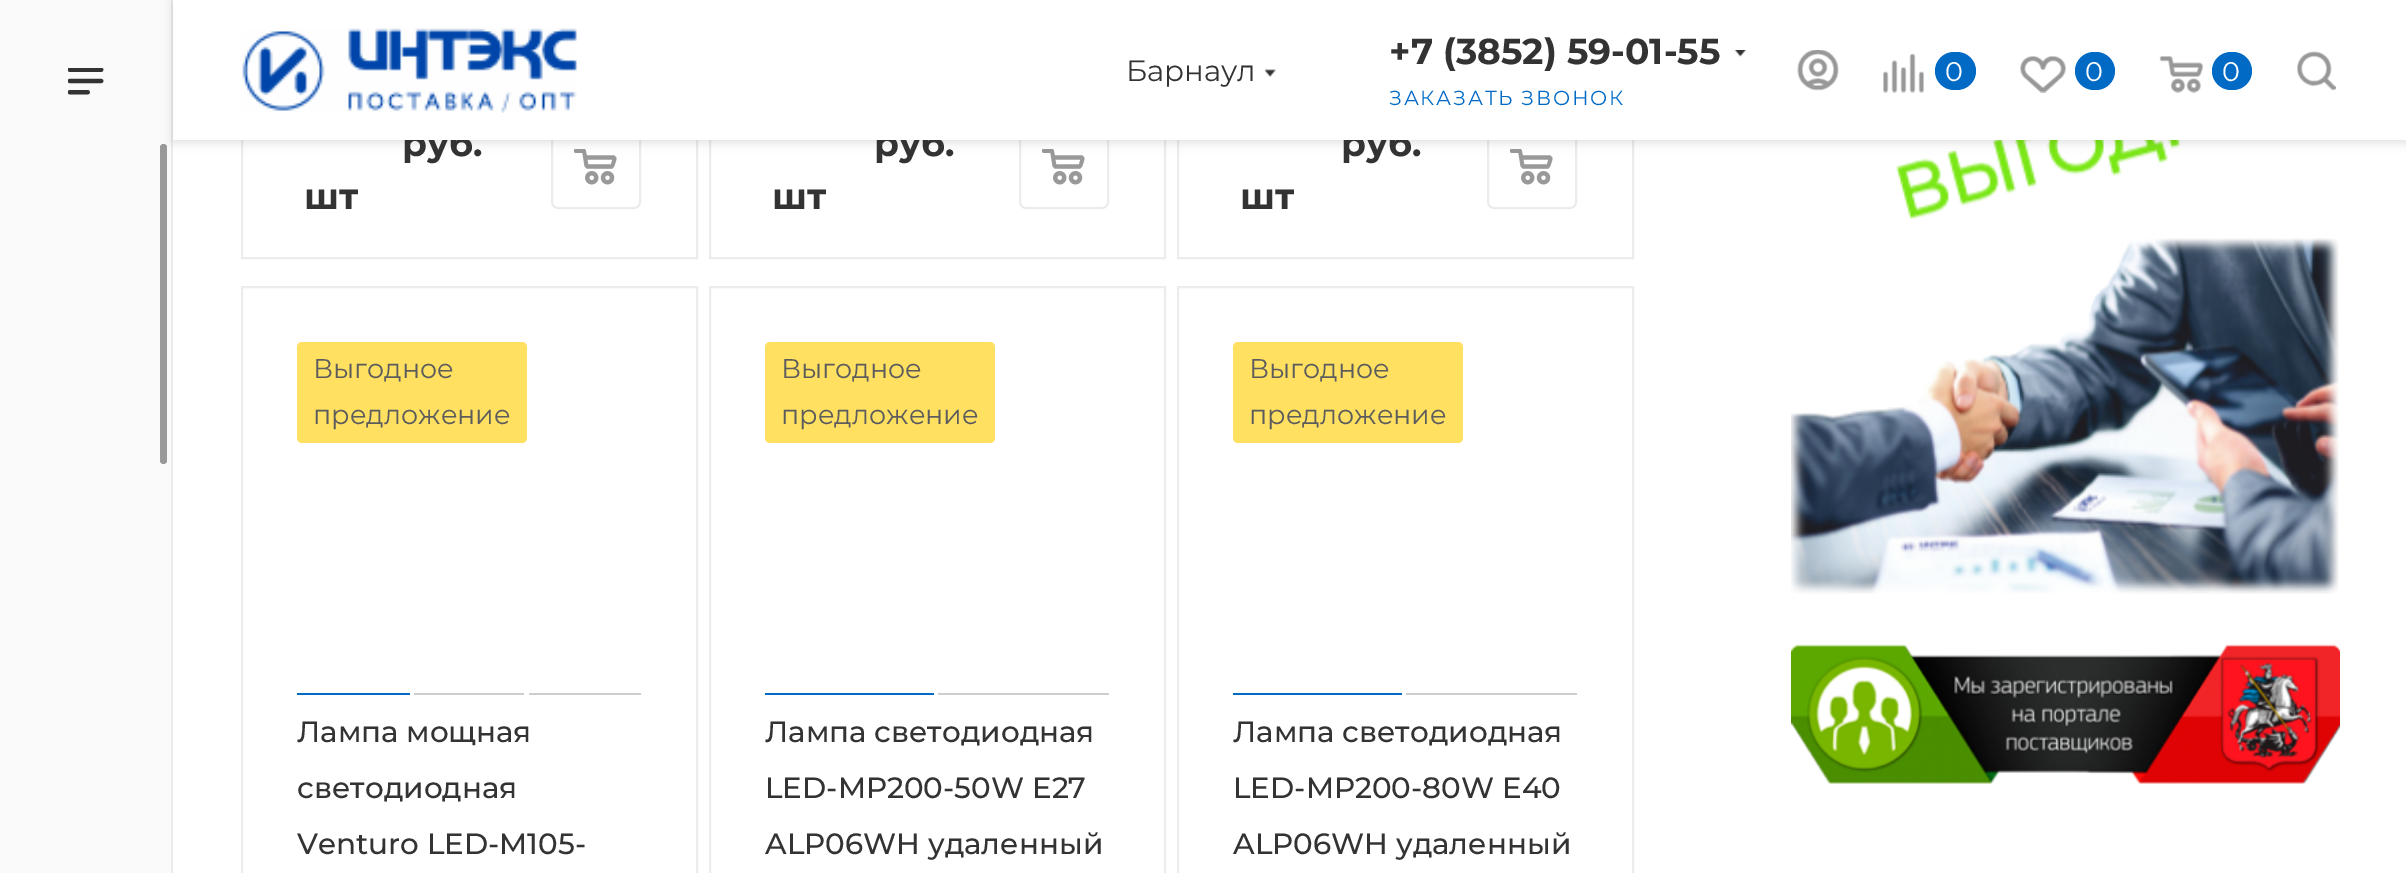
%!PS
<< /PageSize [2406 873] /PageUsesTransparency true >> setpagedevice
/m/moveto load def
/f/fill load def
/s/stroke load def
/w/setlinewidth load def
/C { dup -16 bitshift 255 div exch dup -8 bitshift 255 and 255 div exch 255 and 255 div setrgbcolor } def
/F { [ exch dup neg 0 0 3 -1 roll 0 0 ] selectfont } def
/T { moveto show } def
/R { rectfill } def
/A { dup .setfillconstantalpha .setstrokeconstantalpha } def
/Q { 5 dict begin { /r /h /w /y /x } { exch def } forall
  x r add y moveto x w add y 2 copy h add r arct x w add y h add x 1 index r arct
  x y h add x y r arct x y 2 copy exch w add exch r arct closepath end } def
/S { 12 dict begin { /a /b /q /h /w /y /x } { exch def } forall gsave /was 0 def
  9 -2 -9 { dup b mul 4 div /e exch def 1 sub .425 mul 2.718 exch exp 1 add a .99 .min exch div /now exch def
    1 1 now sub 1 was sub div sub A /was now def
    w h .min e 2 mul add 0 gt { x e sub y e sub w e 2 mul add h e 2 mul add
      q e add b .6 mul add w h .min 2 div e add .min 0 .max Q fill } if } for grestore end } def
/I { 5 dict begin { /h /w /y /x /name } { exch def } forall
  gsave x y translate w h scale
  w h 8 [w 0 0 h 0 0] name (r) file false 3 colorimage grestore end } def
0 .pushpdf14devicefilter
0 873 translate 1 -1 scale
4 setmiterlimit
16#FFFFFF C
0 0 2406 873 R
16#FAFAFA C
0 0 171 873 R
16#ECECEC C
171 0 2 873 R
(1.rgb) 68 68 36 27 I
16#999999 C
160 144 7 320 3.5 Q f
16#ECECEC C
2 w
242 -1 455 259 rectstroke
552 120 88 88 6 Q s
(10.rgb) 574 149 43 36 I
710 -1 455 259 rectstroke
1020 120 88 88 6 Q s
(10.rgb) 1042 149 43 36 I
1178 -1 455 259 rectstroke
1488 120 88 88 6 Q s
(10.rgb) 1510 149 43 36 I
(11.rgb) 1791 140 548 454 I
16#000000 C
173 2 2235 140 0 5.5 .14 S
/Montserrat-Bold 36 F
16#333333 C
(руб.) 402 156 T
(руб.) 874 156 T
(руб.) 1341 156 T
16#FFFFFF C
173 0 2233 140 R
(2.rgb) 242 28 335 85 I
/Montserrat-Regular 29.25 F
16#333333 C
(Барнаул) 1126 81 T
(3.rgb) 1265 69 11 8 I
/Montserrat-Bold 36 F
(+7 \(3852\) 59-01-55) 1389 64 T
(4.rgb) 1734 50 12 7 I
/Montserrat-Regular 20.25 F
16#006AC5 C
1389 105 m 1.75 0 (ЗАКАЗАТЬ ЗВОНОК) ashow
(5.rgb) 1797 50 42 41 I
(6.rgb) 1883 53 41 40 I
1935 52 41 38 19 Q f
/Montserrat-Regular 27 F
16#FFFFFF C
(0) 1945 81 T
(7.rgb) 2020 56 46 37 I
16#006AC5 C
2075 52 40 38 19 Q f
16#FFFFFF C
(0) 2085 81 T
(8.rgb) 2159 56 44 37 I
16#006AC5 C
2212 52 40 38 19 Q f
16#FFFFFF C
(0) 2222 81 T
(9.rgb) 2297 51 39 40 I
/Montserrat-Bold 36 F
16#333333 C
(шт) 304 209 T
(шт) 772 209 T
(шт) 1240 209 T
16#ECECEC C
242 287 455 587 rectstroke
16#FFE061 C
297 342 230 101 5 Q f
/Montserrat-Regular 27 F
16#5C5C5C C
(Выгодное) 313 378 T
(предложение) 313 424 T
16#006AC5 C
297 693 113 2 R
16#CDCDCD C
414 693 110 2 R
529 693 112 2 R
/Montserrat-Medium 29.4 F
16#333333 C
(Лампа мощная) 297 742 T
(светодиодная) 297 798 T
(Venturo LED-M105-) 297 854 T
16#ECECEC C
710 287 455 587 rectstroke
16#FFE061 C
765 342 230 101 5 Q f
/Montserrat-Regular 27 F
16#5C5C5C C
(Выгодное) 781 378 T
(предложение) 781 424 T
16#006AC5 C
765 693 169 2 R
16#CDCDCD C
938 693 171 2 R
/Montserrat-Medium 29.4 F
16#333333 C
(Лампа светодиодная) 765 742 T
(LED-MP200-50W E27) 765 798 T
(ALP06WH удаленный) 765 854 T
16#ECECEC C
1178 287 455 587 rectstroke
16#FFE061 C
1233 342 230 101 5 Q f
/Montserrat-Regular 27 F
16#5C5C5C C
(Выгодное) 1249 378 T
(предложение) 1249 424 T
16#006AC5 C
1233 693 169 2 R
16#CDCDCD C
1406 693 171 2 R
/Montserrat-Medium 29.4 F
16#333333 C
(Лампа светодиодная) 1233 742 T
(LED-MP200-80W E40) 1233 798 T
(ALP06WH удаленный) 1233 854 T
(12.rgb) 1791 644 549 140 I
.poppdf14devicefilter showpage
